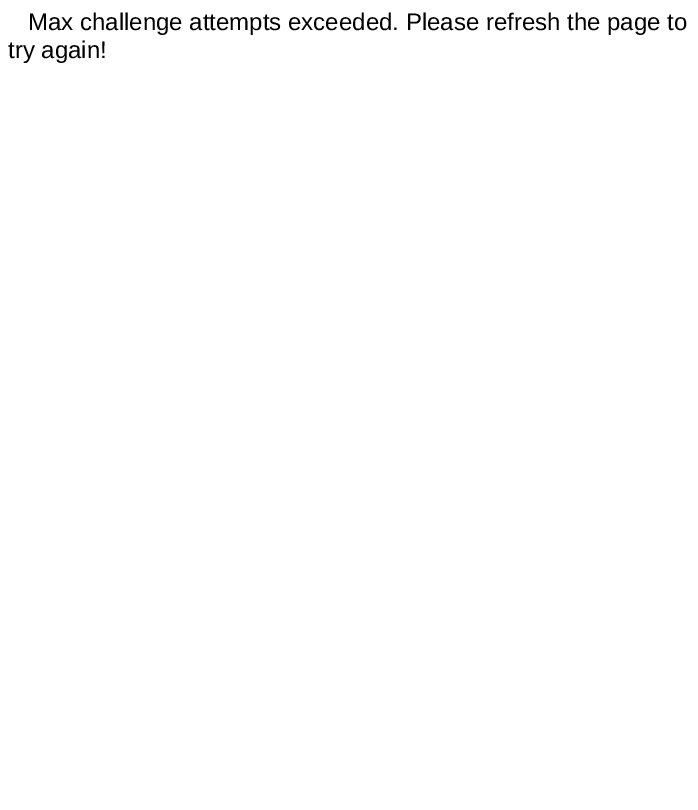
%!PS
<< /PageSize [698 810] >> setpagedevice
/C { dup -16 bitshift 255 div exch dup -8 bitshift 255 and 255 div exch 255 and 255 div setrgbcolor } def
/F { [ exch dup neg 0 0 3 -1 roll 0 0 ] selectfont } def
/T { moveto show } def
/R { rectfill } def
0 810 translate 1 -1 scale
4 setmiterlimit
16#FFFFFF C
0 0 698 810 R
/LiberationSans-Regular 24 F
16#000000 C
(Max challenge attempts exceeded. Please refresh the page to) 28 30 T
(try again!) 8 58 T
showpage
